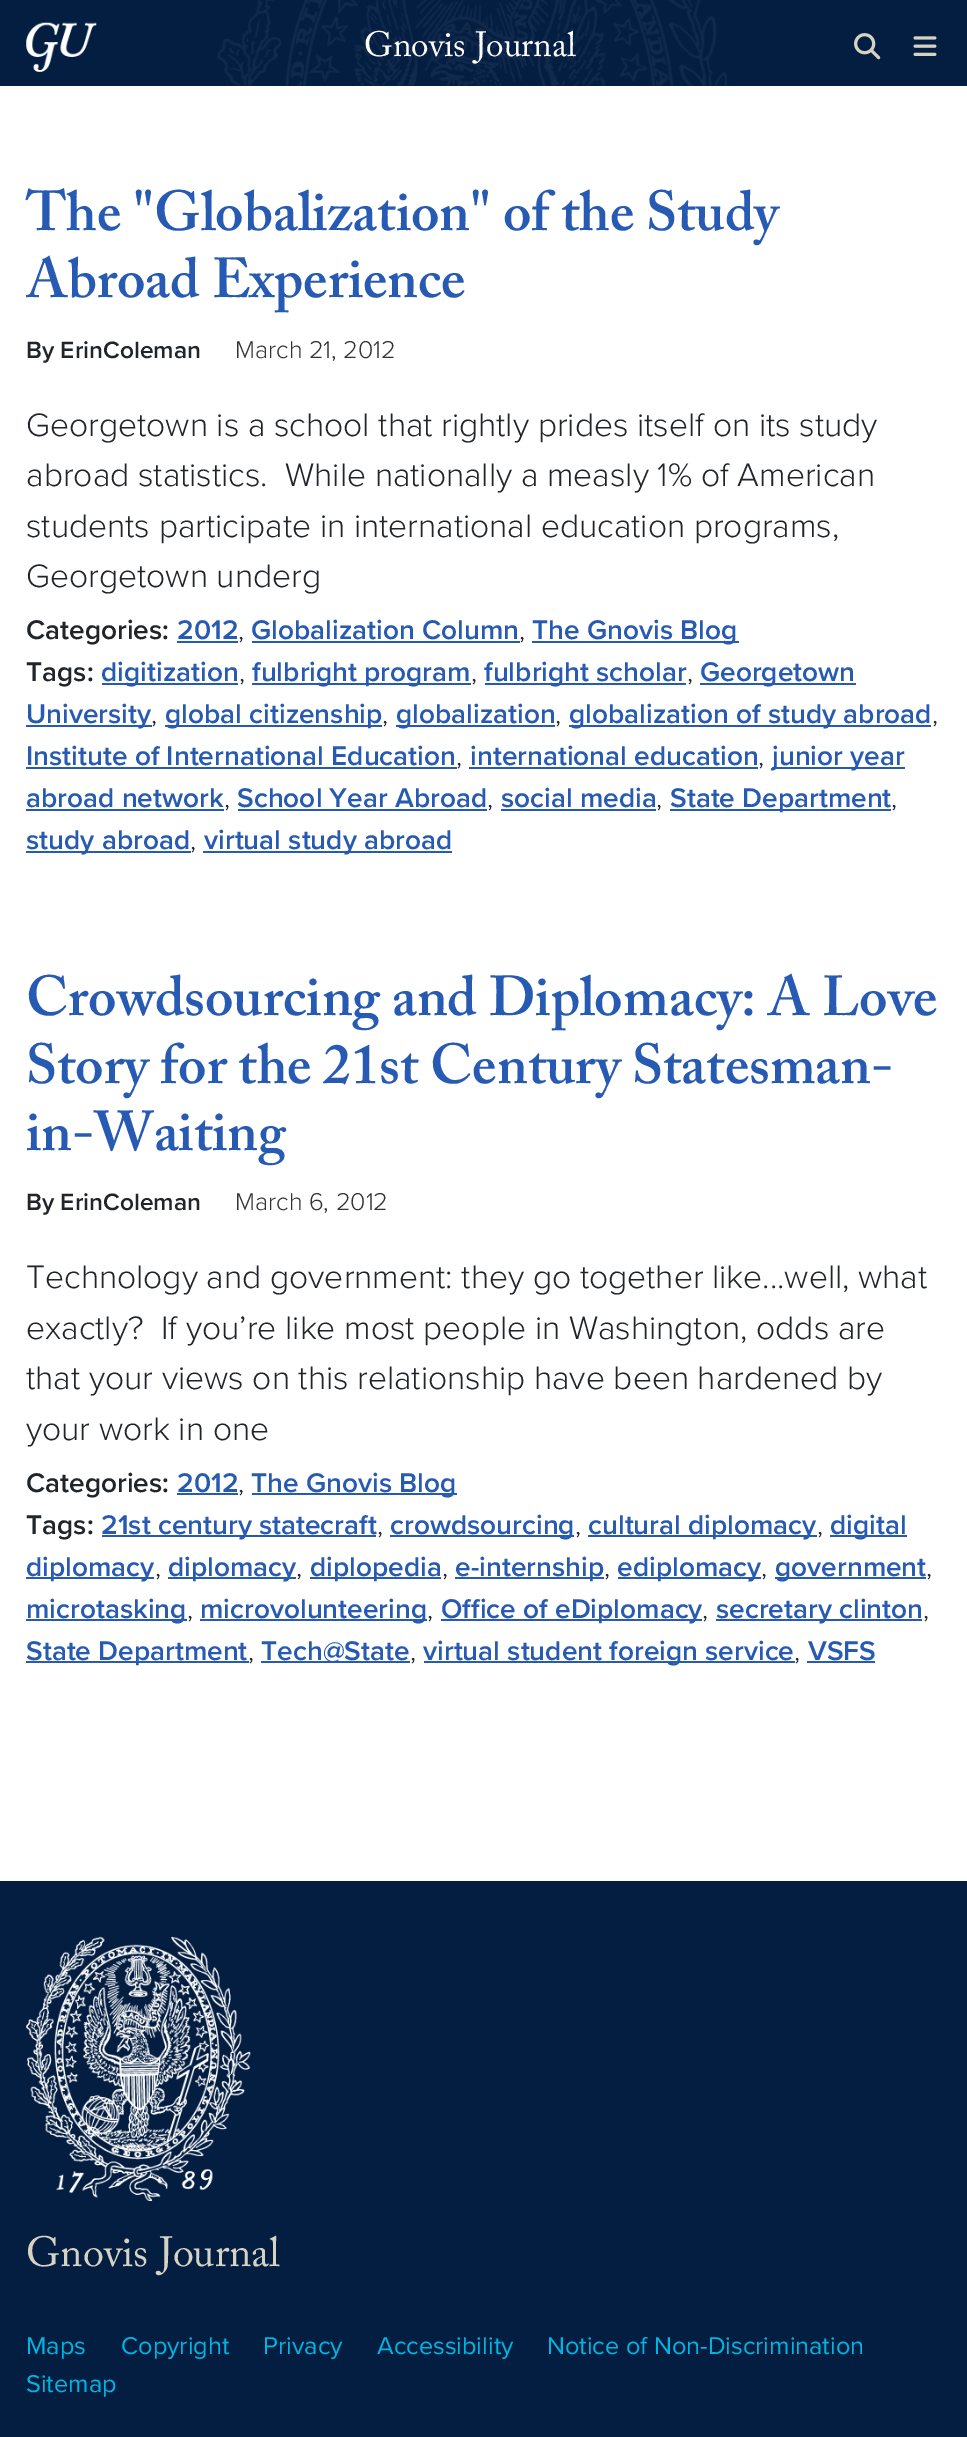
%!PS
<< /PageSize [967 2437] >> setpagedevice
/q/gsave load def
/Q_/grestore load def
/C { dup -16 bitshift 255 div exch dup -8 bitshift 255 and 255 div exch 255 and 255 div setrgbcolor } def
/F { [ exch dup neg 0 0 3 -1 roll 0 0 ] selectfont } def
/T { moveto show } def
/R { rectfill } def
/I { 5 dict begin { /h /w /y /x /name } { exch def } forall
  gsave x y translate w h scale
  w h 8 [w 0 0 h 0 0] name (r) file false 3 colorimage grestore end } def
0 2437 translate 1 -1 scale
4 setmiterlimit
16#FFFFFF C
0 0 967 2437 R
16#041E42 C
0 0 967 86 R
(1.rgb) 217 0 510 86 I
(2.rgb) 26 22 71 50 I
/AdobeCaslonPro-Regular 35 F
16#FFFFFF C
(Gnovis Journal) 364 56 T
(3.rgb) 854 33 27 27 I
(4.rgb) 913 36 24 20 I
/AdobeCaslonPro-SemiBold 56 F
16#265AB3 C
(The "Globalization" of the Study) 26 230 T
q
26 105 916 1678 rectclip
(Abroad Experience) 26 297 T
Q_
/ProximaNova-SemiBold 24.5 F
16#212529 C
(By ErinColeman) 26 358 T
/ProximaNova-Light 25.25 F
16#333333 C
(March 21, 2012) 235 358 T
/ProximaNova-Light 33.6 F
16#212529 C
(Georgetown is a school that rightly prides itself on its study) 26 436 T
(abroad statistics.  While nationally a measly 1% of American) 26 486 T
(students participate in international education programs,) 26 537 T
(Georgetown underg) 26 587 T
/ProximaNova-SemiBold 28 F
(Categories:) 26 639 T
16#265AB3 C
(2012) 177 639 T
/ProximaNova-Light 28 F
16#212529 C
(,) 238 639 T
16#265AB3 C
177 641 61 2 R
/ProximaNova-SemiBold 28 F
(Globalization Column) 251 639 T
/ProximaNova-Light 28 F
16#212529 C
(,) 519 639 T
16#265AB3 C
252 641 268 2 R
532 641 207 2 R
/ProximaNova-SemiBold 28 F
(The Gnovis Blog) 532 639 T
16#212529 C
(Tags:) 26 681 T
16#265AB3 C
102 683 136 2 R
(digitization) 101 681 T
/ProximaNova-Light 28 F
16#212529 C
(,) 239 681 T
16#265AB3 C
252 683 219 2 R
/ProximaNova-SemiBold 28 F
(fulbright program) 252 681 T
/ProximaNova-Light 28 F
16#212529 C
(,) 471 681 T
16#265AB3 C
485 683 201 2 R
/ProximaNova-SemiBold 28 F
(fulbright scholar) 484 681 T
/ProximaNova-Light 28 F
16#212529 C
(,) 687 681 T
16#265AB3 C
700 683 156 2 R
/ProximaNova-SemiBold 28 F
(Georgetown) 700 681 T
26 725 126 2 R
(University) 26 723 T
/ProximaNova-Light 28 F
16#212529 C
(,) 151 723 T
16#265AB3 C
165 725 217 2 R
/ProximaNova-SemiBold 28 F
(global citizenship) 165 723 T
/ProximaNova-Light 28 F
16#212529 C
(,) 382 723 T
16#265AB3 C
396 725 159 2 R
/ProximaNova-SemiBold 28 F
(globalization) 396 723 T
/ProximaNova-Light 28 F
16#212529 C
(,) 555 723 T
16#265AB3 C
569 725 362 2 R
/ProximaNova-SemiBold 28 F
(globalization of study abroad) 569 723 T
/ProximaNova-Light 28 F
16#212529 C
(,) 932 723 T
/ProximaNova-SemiBold 28 F
16#265AB3 C
(Institute of International Education) 26 765 T
26 767 431 2 R
/ProximaNova-Light 28 F
16#212529 C
(,) 456 765 T
/ProximaNova-SemiBold 28 F
16#265AB3 C
(international education) 470 765 T
469 767 289 2 R
/ProximaNova-Light 28 F
16#212529 C
(,) 758 765 T
16#265AB3 C
772 767 133 2 R
/ProximaNova-SemiBold 28 F
(junior year) 772 765 T
(abroad network) 26 807 T
26 809 198 2 R
/ProximaNova-Light 28 F
16#212529 C
(,) 224 807 T
/ProximaNova-SemiBold 28 F
16#265AB3 C
(School Year Abroad) 237 807 T
238 809 249 2 R
/ProximaNova-Light 28 F
16#212529 C
(,) 487 807 T
/ProximaNova-SemiBold 28 F
16#265AB3 C
(social media) 501 807 T
501 809 155 2 R
/ProximaNova-Light 28 F
16#212529 C
(,) 656 807 T
16#265AB3 C
670 809 221 2 R
/ProximaNova-SemiBold 28 F
(State Department) 670 807 T
/ProximaNova-Light 28 F
16#212529 C
(,) 891 807 T
16#265AB3 C
26 851 165 2 R
/ProximaNova-SemiBold 28 F
(study abroad) 26 849 T
/ProximaNova-Light 28 F
16#212529 C
(,) 190 849 T
16#265AB3 C
203 851 249 2 R
/ProximaNova-SemiBold 28 F
(virtual study abroad) 204 849 T
/AdobeCaslonPro-SemiBold 56 F
(Crowdsourcing and Diplomacy: A Love) 26 1015 T
(Story for the 21st Century Statesman-) 26 1083 T
(in-Waiting) 26 1150 T
/ProximaNova-SemiBold 24.5 F
16#212529 C
(By ErinColeman) 26 1210 T
/ProximaNova-Light 25.25 F
16#333333 C
(March 6, 2012) 235 1210 T
/ProximaNova-Light 33.6 F
16#212529 C
(Technology and government: they go together like...well, what) 26 1288 T
(exactly?  If you’re like most people in Washington, odds are) 26 1339 T
(that your views on this relationship have been hardened by) 26 1389 T
(your work in one) 26 1440 T
/ProximaNova-SemiBold 28 F
(Categories:) 26 1492 T
16#265AB3 C
(2012) 177 1492 T
/ProximaNova-Light 28 F
16#212529 C
(,) 238 1492 T
16#265AB3 C
177 1493 61 2 R
252 1493 205 2 R
/ProximaNova-SemiBold 28 F
(The Gnovis Blog) 251 1492 T
16#212529 C
(Tags:) 26 1534 T
16#265AB3 C
102 1535 274 2 R
(21st century statecraft) 101 1534 T
/ProximaNova-Light 28 F
16#212529 C
(,) 377 1534 T
16#265AB3 C
390 1535 184 2 R
/ProximaNova-SemiBold 28 F
(crowdsourcing) 390 1534 T
/ProximaNova-Light 28 F
16#212529 C
(,) 575 1534 T
16#265AB3 C
588 1535 229 2 R
/ProximaNova-SemiBold 28 F
(cultural diplomacy) 588 1534 T
/ProximaNova-Light 28 F
16#212529 C
(,) 817 1534 T
16#265AB3 C
830 1535 77 2 R
/ProximaNova-SemiBold 28 F
(digital) 830 1534 T
26 1577 128 2 R
(diplomacy) 26 1576 T
/ProximaNova-Light 28 F
16#212529 C
(,) 155 1576 T
16#265AB3 C
168 1577 128 2 R
/ProximaNova-SemiBold 28 F
(diplomacy) 168 1576 T
/ProximaNova-Light 28 F
16#212529 C
(,) 296 1576 T
16#265AB3 C
310 1577 131 2 R
/ProximaNova-SemiBold 28 F
(diplopedia) 310 1576 T
/ProximaNova-Light 28 F
16#212529 C
(,) 442 1576 T
16#265AB3 C
455 1577 149 2 R
/ProximaNova-SemiBold 28 F
(e-internship) 455 1576 T
/ProximaNova-Light 28 F
16#212529 C
(,) 604 1576 T
16#265AB3 C
618 1577 143 2 R
/ProximaNova-SemiBold 28 F
(ediplomacy) 617 1576 T
/ProximaNova-Light 28 F
16#212529 C
(,) 761 1576 T
16#265AB3 C
775 1577 151 2 R
/ProximaNova-SemiBold 28 F
(government) 775 1576 T
/ProximaNova-Light 28 F
16#212529 C
(,) 926 1576 T
16#265AB3 C
26 1619 161 2 R
/ProximaNova-SemiBold 28 F
(microtasking) 26 1618 T
/ProximaNova-Light 28 F
16#212529 C
(,) 187 1618 T
16#265AB3 C
200 1619 227 2 R
/ProximaNova-SemiBold 28 F
(microvolunteering) 200 1618 T
/ProximaNova-Light 28 F
16#212529 C
(,) 427 1618 T
16#265AB3 C
441 1619 261 2 R
/ProximaNova-SemiBold 28 F
(Office of eDiplomacy) 441 1618 T
/ProximaNova-Light 28 F
16#212529 C
(,) 702 1618 T
16#265AB3 C
716 1619 206 2 R
/ProximaNova-SemiBold 28 F
(secretary clinton) 716 1618 T
/ProximaNova-Light 28 F
16#212529 C
(,) 923 1618 T
16#265AB3 C
26 1661 223 2 R
/ProximaNova-SemiBold 28 F
(State Department) 26 1660 T
/ProximaNova-Light 28 F
16#212529 C
(,) 248 1660 T
16#265AB3 C
261 1661 149 2 R
/ProximaNova-SemiBold 28 F
(Tech@State) 261 1660 T
/ProximaNova-Light 28 F
16#212529 C
(,) 410 1660 T
16#265AB3 C
424 1661 371 2 R
/ProximaNova-SemiBold 28 F
(virtual student foreign service) 423 1660 T
/ProximaNova-Light 28 F
16#212529 C
(,) 794 1660 T
/ProximaNova-SemiBold 28 F
16#265AB3 C
(VSFS) 808 1660 T
807 1661 68 2 R
16#041E42 C
0 1881 967 556 R
(5.rgb) 26 1936 225 265 I
/AdobeCaslonPro-Regular 42 F
16#D6D2C4 C
(Gnovis Journal) 26 2266 T
/ProximaNova-Regular 25.25 F
16#00B5E2 C
(Maps) 26 2354 T
(Copyright) 121 2354 T
(Privacy) 263 2354 T
(Accessibility) 377 2354 T
(Notice of Non-Discrimination) 547 2354 T
(Sitemap) 26 2392 T
showpage
